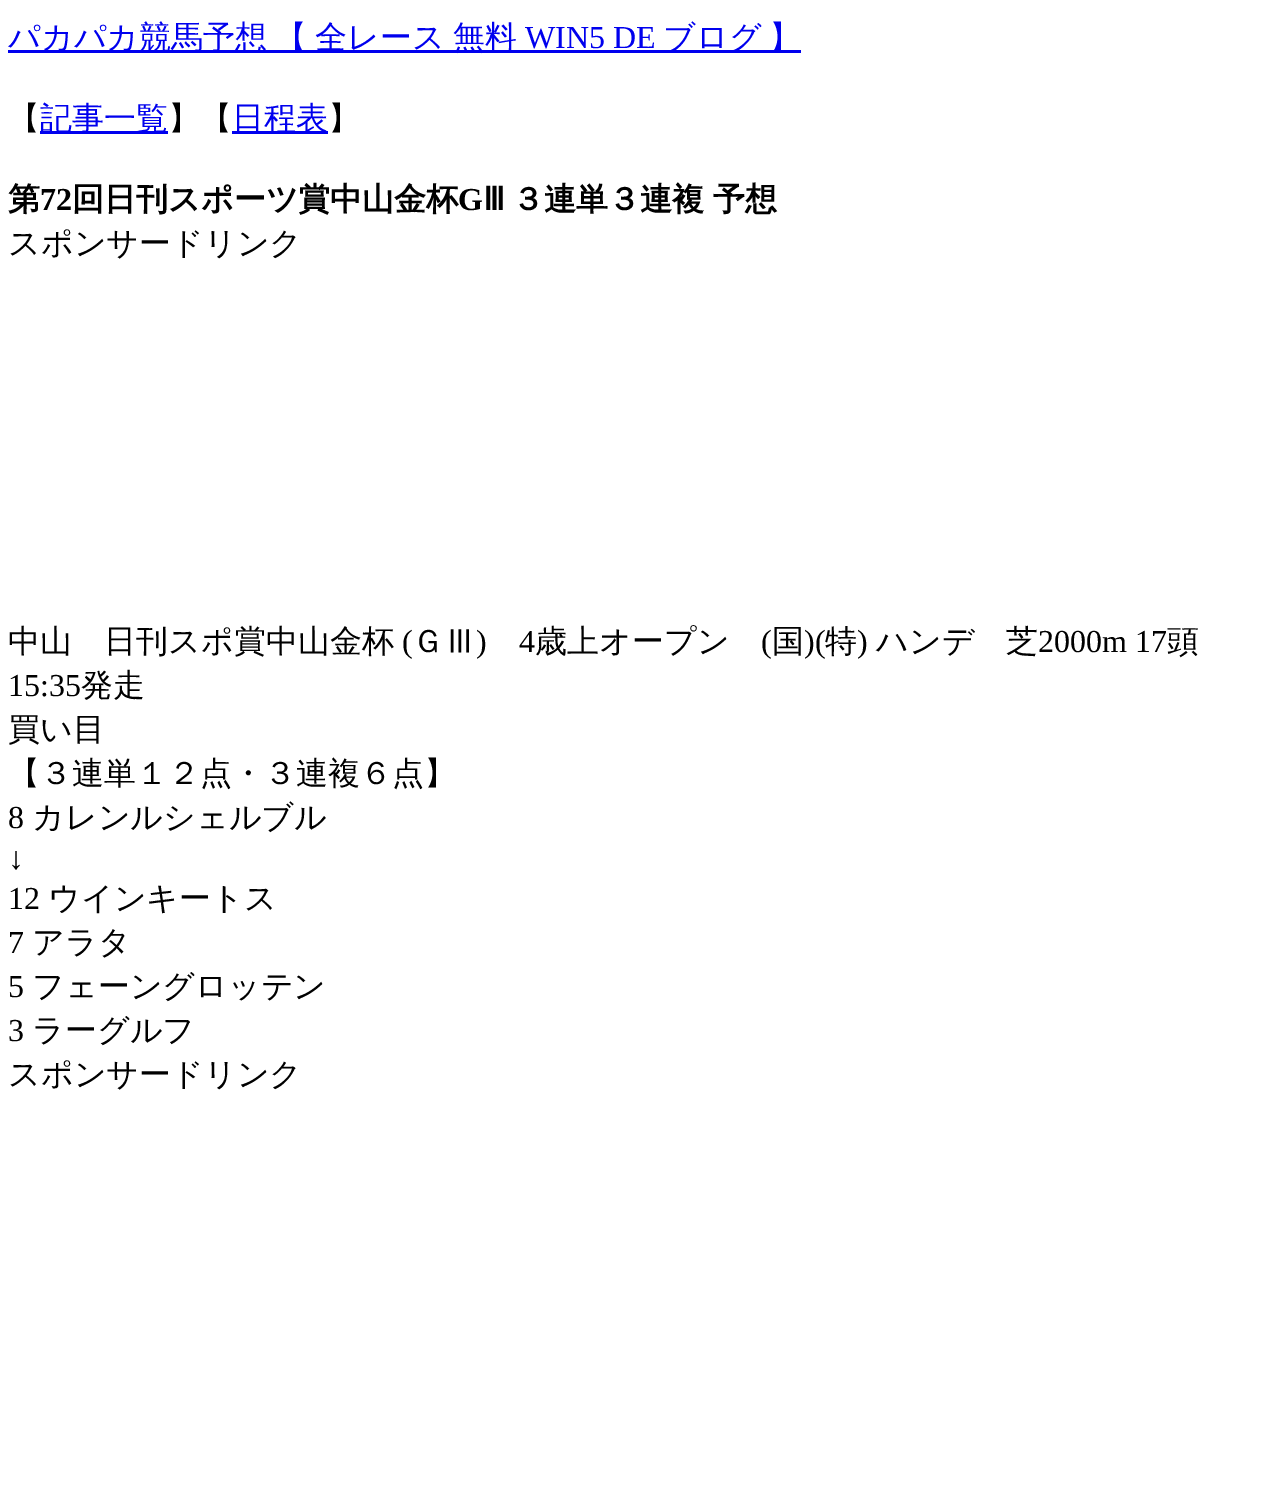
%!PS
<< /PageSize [1277 1492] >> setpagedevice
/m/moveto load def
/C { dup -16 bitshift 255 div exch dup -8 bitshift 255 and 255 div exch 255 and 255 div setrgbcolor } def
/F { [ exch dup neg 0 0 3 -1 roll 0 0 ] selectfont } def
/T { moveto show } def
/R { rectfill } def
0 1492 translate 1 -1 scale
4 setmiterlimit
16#FFFFFF C
0 0 1277 1492 R
16#0000EE C
8 50 793 3 R
/WenQuanYiZenHei-Medium 32 F
(パカパカ競馬予想) 8 48 T
(【) 275 48 T
(全レース) 315 48 T
(無料) 453 48 T
/LiberationSerif-Regular 32 F
(WIN5 DE) 525 48 T
/WenQuanYiZenHei-Medium 32 F
(ブログ) 663 48 T
(】) 769 48 T
16#000000 C
(【) 8 129 T
16#0000EE C
40 131 128 3 R
(記事一覧) 40 129 T
16#000000 C
(】【) 168 129 T
16#0000EE C
232 131 96 3 R
(日程表) 232 129 T
16#000000 C
(】) 328 129 T
/WenQuanYiZenHei-Bold 32 F
(第) 8 210 T
/LiberationSerif-Bold 32 F
(72) 40 210 T
/WenQuanYiZenHei-Bold 32 F
(回日刊スポーツ賞中山金杯) 72 210 T
/LiberationSerif-Bold 32 F
(G) 458 210 T
/DejaVuSans-Bold 32 F
(Ⅲ) 483 210 T
/WenQuanYiZenHei-Bold 32 F
512 210 m -1 0 32 (３連単３連複 予想) widthshow
/WenQuanYiZenHei-Medium 32 F
(スポンサードリンク) 8 254 T
(中山　日刊スポ賞中山金杯) 8 652 T
/LiberationSerif-Regular 32 F
(\() 402 652 T
/WenQuanYiZenHei-Medium 32 F
(ＧⅢ) 412 652 T
/LiberationSerif-Regular 32 F
(\)) 476 652 T
(4) 519 652 T
/WenQuanYiZenHei-Medium 32 F
(歳上オープン) 535 652 T
/LiberationSerif-Regular 32 F
(\() 761 652 T
/WenQuanYiZenHei-Medium 32 F
(国) 772 652 T
/LiberationSerif-Regular 32 F
(\)\() 804 652 T
/WenQuanYiZenHei-Medium 32 F
(特) 825 652 T
/LiberationSerif-Regular 32 F
(\)) 857 652 T
/WenQuanYiZenHei-Medium 32 F
(ハンデ　芝) 876 652 T
/LiberationSerif-Regular 32 F
(2000m 17) 1038 652 T
/WenQuanYiZenHei-Medium 32 F
(頭) 1167 652 T
/LiberationSerif-Regular 32 F
(15:35) 8 696 T
/WenQuanYiZenHei-Medium 32 F
(発走) 81 696 T
(買い目) 8 740 T
(【３連単１２点・３連複６点】) 8 784 T
/LiberationSerif-Regular 32 F
(8) 8 828 T
/WenQuanYiZenHei-Medium 32 F
(カレンルシェルブル) 32 828 T
/LiberationSerif-Regular 32 F
(↓) 8 869 T
(12) 8 909 T
/WenQuanYiZenHei-Medium 32 F
(ウインキートス) 48 909 T
/LiberationSerif-Regular 32 F
(7) 8 953 T
/WenQuanYiZenHei-Medium 32 F
(アラタ) 32 953 T
/LiberationSerif-Regular 32 F
(5) 8 997 T
/WenQuanYiZenHei-Medium 32 F
(フェーングロッテン) 32 997 T
/LiberationSerif-Regular 32 F
(3) 8 1041 T
/WenQuanYiZenHei-Medium 32 F
(ラーグルフ) 32 1041 T
(スポンサードリンク) 8 1085 T
showpage
